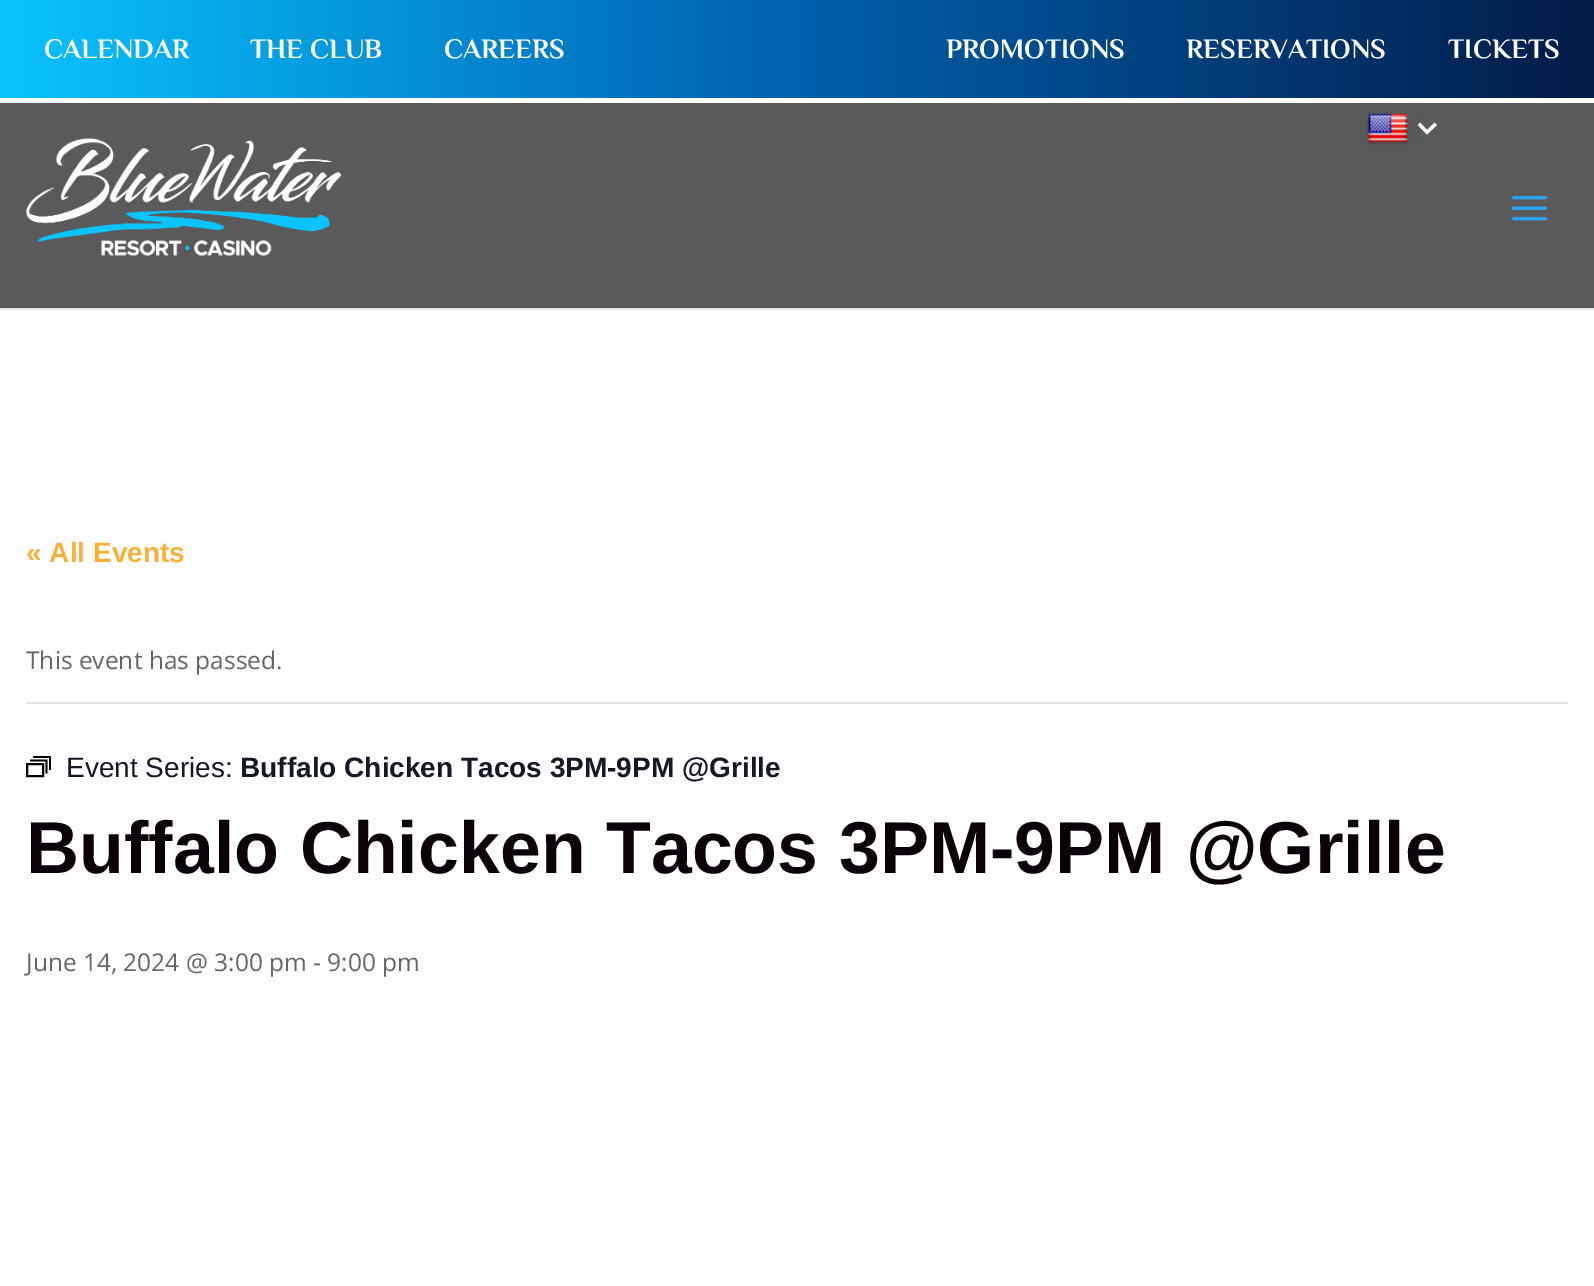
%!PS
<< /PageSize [1594 1286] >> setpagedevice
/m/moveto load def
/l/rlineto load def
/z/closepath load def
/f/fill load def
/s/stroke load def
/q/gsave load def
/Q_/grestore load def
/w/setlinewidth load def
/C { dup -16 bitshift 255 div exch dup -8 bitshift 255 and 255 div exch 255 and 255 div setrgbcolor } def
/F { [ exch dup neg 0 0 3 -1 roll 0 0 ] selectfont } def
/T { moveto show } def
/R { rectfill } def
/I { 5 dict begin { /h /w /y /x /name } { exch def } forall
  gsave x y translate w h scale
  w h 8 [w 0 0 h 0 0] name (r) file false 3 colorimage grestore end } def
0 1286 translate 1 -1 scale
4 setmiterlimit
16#FFFFFF C
0 0 1594 1286 R
q 0 0 m 1594 0 l 0 98 l -1594 0 l z clip newpath
<< /ShadingType 2 /ColorSpace /DeviceRGB /Coords [0 49 1594 49] /Extend [true true] /Function << /FunctionType 3 /Domain [0 1] /Functions [<< /FunctionType 2 /Domain [0 1] /C0 [.035 .769 1] /C1 [0 .396 .702] /N 1 >> << /FunctionType 2 /Domain [0 1] /C0 [0 .396 .702] /C1 [.004 .11 .282] /N 1 >>] /Bounds [.47] /Encode [0 1 0 1] >> >> shfill Q_
/Philosopher-Bold 28 F
(CALENDAR) 44 58 T
(THE CLUB) 250 58 T
(CAREERS) 444 58 T
(PROMOTIONS) 946 58 T
(RESERVATIONS) 1186 58 T
(TICKETS) 1448 58 T
16#E6E6E6 C
0 308 1594 2 R
16#5A5A5A C
0 103 1594 205 R
(1.rgb) 26 138 316 118 I
(2.rgb) 1512 195 35 26 I
/LiberationSans-Bold 28 F
16#FBB03B C
(« All Events) 26 562 T
16#E4E4E4 C
26 702 1542 2 R
/OpenSans-Regular 24.5 F
16#666666 C
(This event has passed.) 26 669 T
16#000000 C
2 w
27 764 16 12 rectstroke
1.8 w
30 760.5 m 16.5 0 l 0 13 l 33 757 m 17 0 l 0 13 l s
/LiberationSans-Regular 28 F
16#141827 C
(Event Series:) 66 777 T
/LiberationSans-Bold 28 F
(Buffalo Chicken Tacos 3PM-9PM @Grille) 240 777 T
/LiberationSans-Bold 73.5 F
16#0A0208 C
(Buffalo Chicken Tacos 3PM-9PM @Grille) 26 873 T
/OpenSans-Regular 24.5 F
16#666666 C
(June 14, 2024 @ 3:00 pm - 9:00 pm) 26 971 T
16#FFFFFF C
1417.5 125 m 2.5 -2.5 l 7 7.5 l 7.5 -7.5 l 2.5 2.5 l -10 9.5 l z f
(3.rgb) 1367 113 52 32 I
showpage
